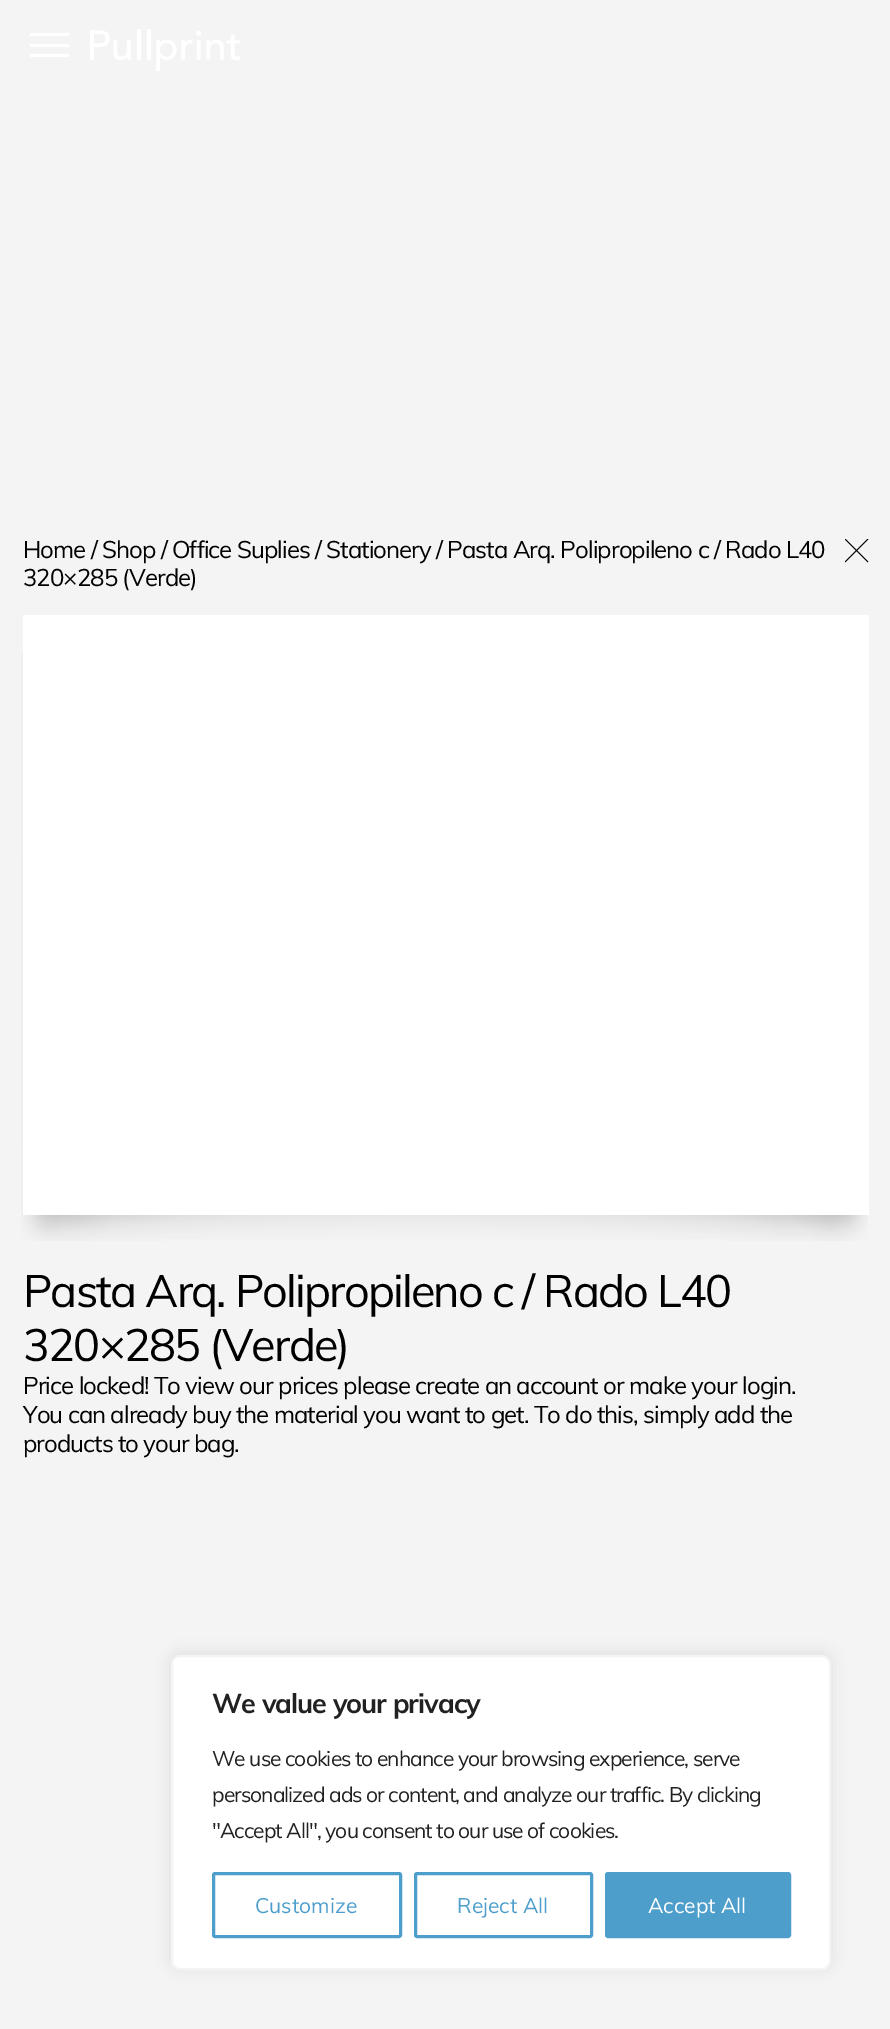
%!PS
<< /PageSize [890 2029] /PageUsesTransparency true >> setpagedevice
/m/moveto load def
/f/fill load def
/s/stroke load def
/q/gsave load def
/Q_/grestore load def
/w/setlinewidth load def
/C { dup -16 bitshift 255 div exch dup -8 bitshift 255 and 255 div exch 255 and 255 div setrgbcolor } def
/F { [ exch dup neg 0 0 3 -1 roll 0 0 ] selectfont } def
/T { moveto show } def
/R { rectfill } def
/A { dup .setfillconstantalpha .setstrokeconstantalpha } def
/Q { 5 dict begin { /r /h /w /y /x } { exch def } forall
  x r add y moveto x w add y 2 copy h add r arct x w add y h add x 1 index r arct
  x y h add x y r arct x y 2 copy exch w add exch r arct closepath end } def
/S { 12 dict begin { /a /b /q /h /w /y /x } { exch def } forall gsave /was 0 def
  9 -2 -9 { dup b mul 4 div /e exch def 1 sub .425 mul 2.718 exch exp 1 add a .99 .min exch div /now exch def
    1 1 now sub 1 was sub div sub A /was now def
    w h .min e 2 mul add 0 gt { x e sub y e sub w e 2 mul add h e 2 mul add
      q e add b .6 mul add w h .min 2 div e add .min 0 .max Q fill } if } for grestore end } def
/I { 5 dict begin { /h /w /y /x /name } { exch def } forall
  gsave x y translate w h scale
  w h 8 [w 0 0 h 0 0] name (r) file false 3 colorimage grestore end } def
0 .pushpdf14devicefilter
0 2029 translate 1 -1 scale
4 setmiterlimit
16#F4F4F4 C
0 0 890 2029 R
16#FFFFFF C
30 44 39 3 R
30 33 39 3 R
30 54 39 3 R
(1.rgb) 90 29 150 42 I
/Muli-Regular 24 F
16#000000 C
23 558 m -.95 0 (Home / Shop / Office Suplies / Stationery / Pasta Arq. Polipropileno c / Rado L40) ashow
23 586 m -.95 0 (320×285 \(Verde\)) ashow
(2.rgb) 845 539 24 24 I
(3.rgb) 21 654 847 587 I
16#FFFFFF C
23 615 846 600 R
/Muli-Regular 45 F
16#000000 C
23 1307 m -1.8 0 (Pasta Arq. Polipropileno c / Rado L40) ashow
23 1361 m -1.8 0 (320×285 \(Verde\)) ashow
/Muli-Regular 24 F
23 1394 m -.95 0 (Price locked! To view our prices please create an account or make your login.) ashow
23 1423 m -.95 0 (You can already buy the material you want to get. To do this, simply add the) ashow
23 1452 m -.95 0 (products to your bag.) ashow
16#ACABAB C
171 1653 660 315 9 7.5 .3 S
16#FFFFFF C
172 1656 658 313 8 Q q f Q_
16#F4F4F4 C
2 w
s
/Muli-Bold 27 F
16#212121 C
212 1713 m -.95 0 (We value your privacy) ashow
/Muli-Regular 21 F
212 1766 m -.95 0 (We use cookies to enhance your browsing experience, serve) ashow
212 1802 m -.95 0 (personalized ads or content, and analyze our traffic. By clicking) ashow
212 1838 m -.95 0 ("Accept All", you consent to our use of cookies.) ashow
16#4D9ECB C
3 w
213.5 1873.5 187 63 1.5 Q s
(Customize) 255 1913 T
415.5 1873.5 176 63 1.5 Q s
(Reject All) 457 1913 T
606.5 1873.5 183 63 1.5 Q q f Q_
s
16#FFFFFF C
(Accept All) 648 1913 T
.poppdf14devicefilter showpage
